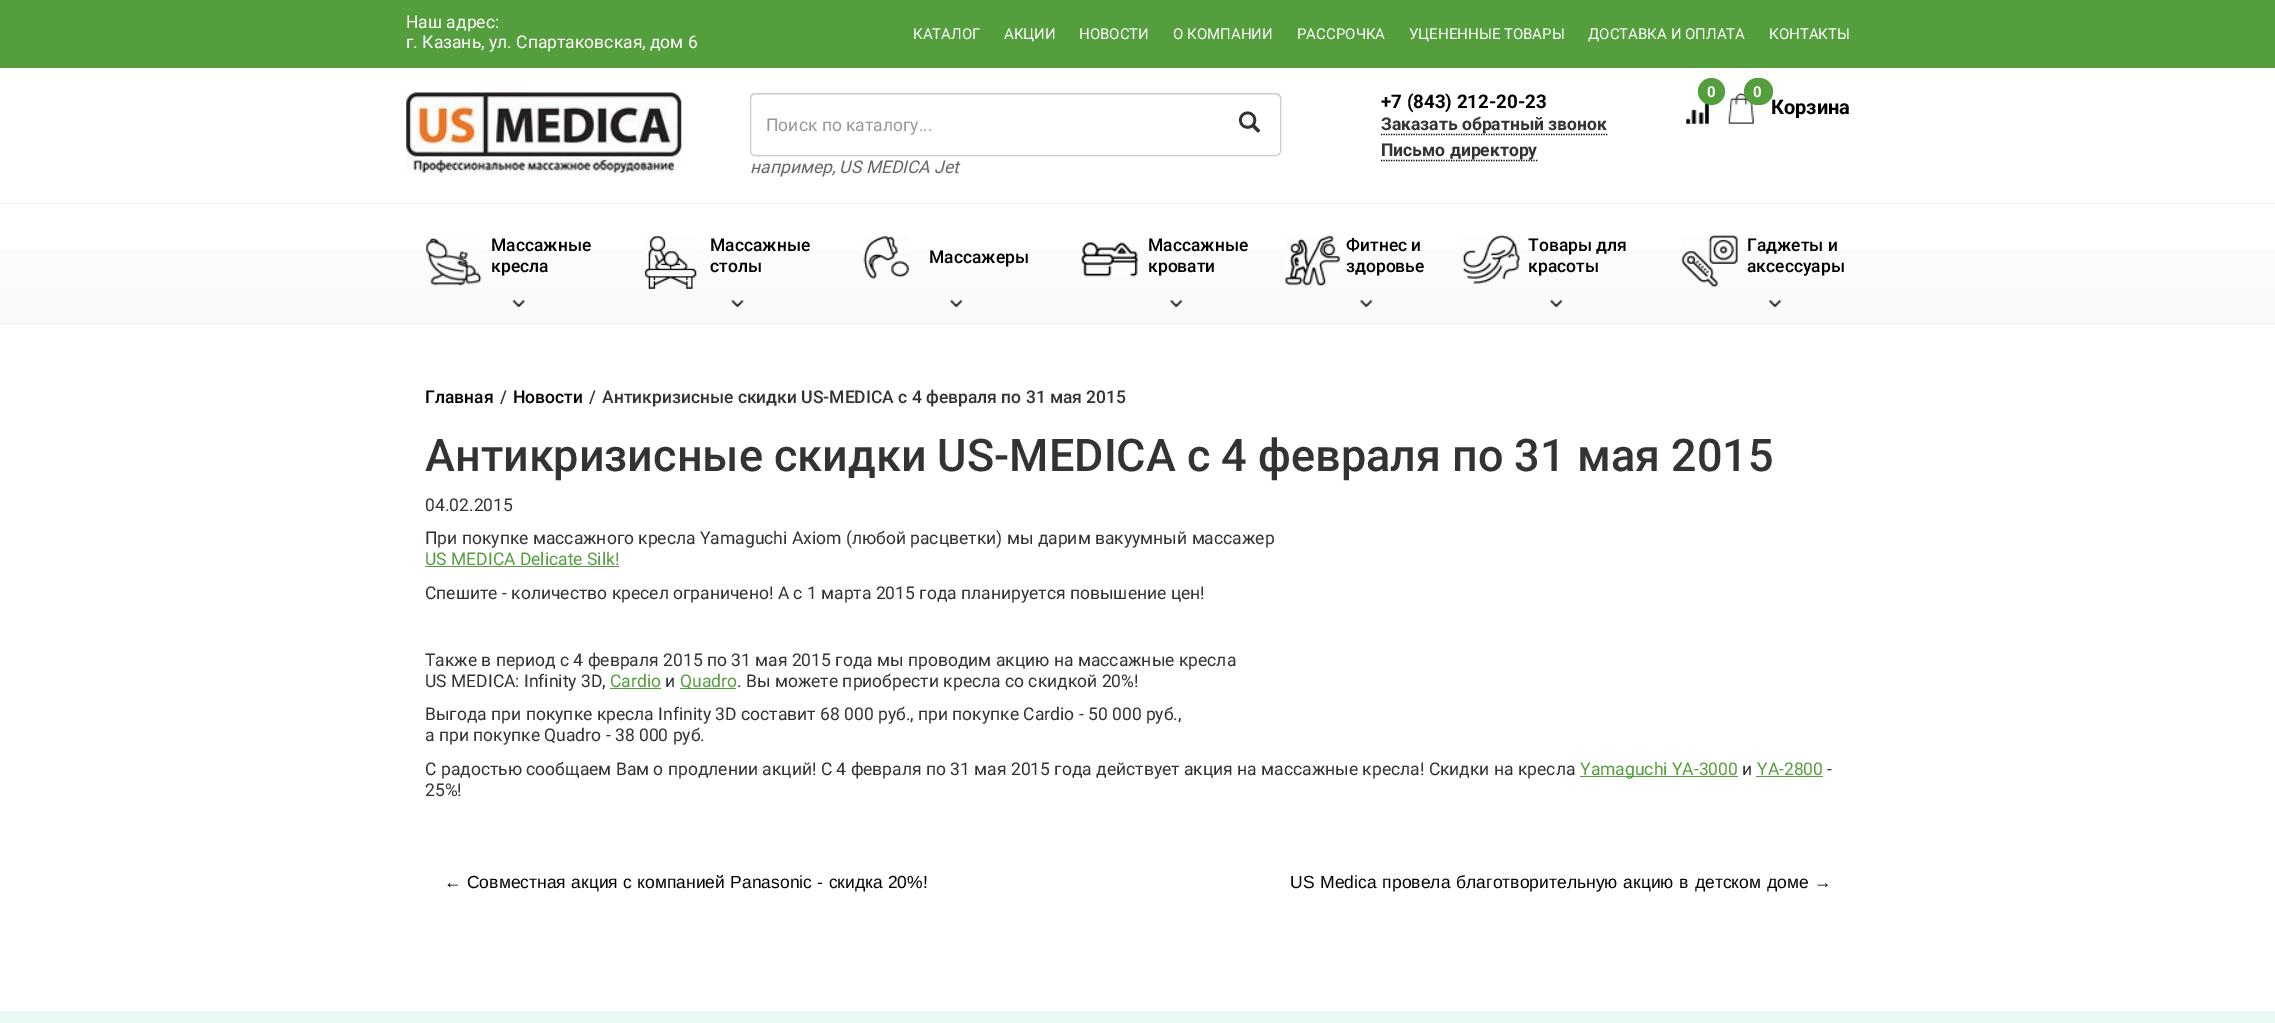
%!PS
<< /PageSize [2275 1023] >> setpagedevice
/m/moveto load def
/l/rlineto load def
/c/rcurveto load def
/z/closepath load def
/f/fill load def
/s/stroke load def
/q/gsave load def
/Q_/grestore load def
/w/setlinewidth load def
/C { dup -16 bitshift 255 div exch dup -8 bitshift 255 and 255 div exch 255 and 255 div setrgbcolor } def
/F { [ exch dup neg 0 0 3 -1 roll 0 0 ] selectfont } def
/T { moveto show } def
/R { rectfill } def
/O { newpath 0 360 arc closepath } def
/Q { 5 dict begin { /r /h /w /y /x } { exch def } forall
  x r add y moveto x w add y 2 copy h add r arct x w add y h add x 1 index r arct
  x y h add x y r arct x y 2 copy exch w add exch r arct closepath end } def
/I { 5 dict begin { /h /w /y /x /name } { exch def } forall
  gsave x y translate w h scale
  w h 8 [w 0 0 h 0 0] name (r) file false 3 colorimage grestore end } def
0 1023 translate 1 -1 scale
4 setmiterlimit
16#FFFFFF C
0 0 2275 1023 R
16#559E3E C
0 0 2275 68 R
/Roboto-Regular 17.5 F
16#FFFFFF C
(Наш адрес:) 406 28 T
(г. Казань, ул. Спартаковская, дом 6) 406 48 T
/Roboto-Regular 15 F
(КАТАЛОГ) 913 39 T
(АКЦИИ) 1004 39 T
(НОВОСТИ) 1079 39 T
(О КОМПАНИИ) 1173 39 T
(РАССРОЧКА) 1297 39 T
(УЦЕНЕННЫЕ ТОВАРЫ) 1409 39 T
(ДОСТАВКА И ОПЛАТА) 1588 39 T
(КОНТАКТЫ) 1769 39 T
(1.rgb) 406 92 276 81 I
16#ECECEC C
755 95 m 521 0 l 2 0 4 2 4 4 c 0 -1 l 0 -2 -2 -4 -4 -4 c -521 0 l -2 0 -4 2 -4 4 c 0 1 l 0 -2 2 -4 4 -4 c z f
16#CCCCCC C
750.5 93.5 530 62 4.5 Q s
/Roboto-Regular 17.5 F
16#999999 C
(Поиск по каталогу...) 766 131 T
(2.rgb) 1238 111 23 22 I
/Roboto-Italic 17.5 F
16#676767 C
(например, US MEDICA Jet) 750 173 T
/Roboto-Bold 18.75 F
16#000000 C
(+7 \(843\) 212-20-23) 1381 108 T
1.2 w
[1.25 1.25] 0 setdash
1381 134.5 m 226.5 0 l s
/Roboto-Bold 17.5 F
16#333333 C
(Заказать обратный звонок) 1381 130 T
16#000000 C
1381 160.5 m 156.5 0 l s
16#333333 C
(Письмо директору) 1381 156 T
(3.rgb) 1686 102 23 22 I
16#559E3E C
1711.5 91.5 13.5 O f
/Roboto-Bold 15 F
16#FFFFFF C
(0) 1707 97 T
(4.rgb) 1728 93 26 31 I
/Roboto-Bold 20 F
16#000000 C
(Корзина) 1771 114 T
16#559E3E C
1744 78 29 27 13.5 Q f
/Roboto-Bold 15 F
16#FFFFFF C
(0) 1753 97 T
q 0 249 m 2275 0 l 0 74 l -2275 0 l z clip newpath
<< /ShadingType 2 /ColorSpace /DeviceRGB /Coords [1138 204 1138 323] /Extend [true true] /Function << /FunctionType 2 /Domain [0 1] /C0 [.996 .996 .996] /C1 [.98 .98 .984] /N 1 >> >> shfill Q_
16#F1F1F1 C
0 203 2275 1 R
0 323 2275 1 R
(5.rgb) 426 238 56 48 I
/Roboto-Medium 17.5 F
16#000000 C
(Массажные) 491 251 T
(кресла) 491 272 T
(6.rgb) 512 300 13 8 I
(7.rgb) 644 236 53 53 I
(Массажные) 710 251 T
(столы) 710 272 T
(8.rgb) 731 300 13 8 I
(9.rgb) 863 236 46 43 I
(Массажеры) 929 263 T
(10.rgb) 950 300 13 8 I
(11.rgb) 1081 242 57 35 I
(Массажные) 1148 251 T
(кровати) 1148 272 T
(10.rgb) 1170 300 13 8 I
(12.rgb) 1285 236 55 51 I
(Фитнес и) 1346 251 T
(здоровье) 1346 272 T
(13.rgb) 1360 300 13 8 I
(14.rgb) 1462 235 58 49 I
(Товары для) 1528 251 T
(красоты) 1528 272 T
(10.rgb) 1550 300 13 8 I
(15.rgb) 1681 235 57 52 I
(Гаджеты и) 1747 251 T
(аксессуары) 1747 272 T
(16.rgb) 1768 300 14 8 I
(Главная) 425 403 T
16#333333 C
(/) 500 403 T
16#000000 C
(Новости) 513 403 T
16#333333 C
(/) 589 403 T
(Антикризисные скидки US-MEDICA c 4 февраля по 31 мая 2015) 602 403 T
/Roboto-Medium 45 F
(Антикризисные скидки US-MEDICA c 4 февраля по 31 мая 2015) 425 471 T
/Roboto-Regular 17.5 F
(04.02.2015) 425 511 T
(При покупке массажного кресла Yamaguchi Axiom \(любой расцветки\) мы дарим вакуумный массажер) 425 544 T
16#559E3E C
(US MEDICA Delicate Silk!) 425 565 T
425 566 194 1 R
16#333333 C
(Спешите - количество кресел ограничено! А с 1 марта 2015 года планируется повышение цен!) 425 599 T
(Также в период с 4 февраля 2015 по 31 мая 2015 года мы проводим акцию на массажные кресла) 425 666 T
(US MEDICA: Infinity 3D,) 425 687 T
16#559E3E C
(Cardio) 610 687 T
610 688 51 1 R
16#333333 C
(и) 665 687 T
16#559E3E C
680 688 56 1 R
(Quadro) 680 687 T
16#333333 C
(. Вы можете приобрести кресла со скидкой 20%!) 737 687 T
(Выгода при покупке кресла Infinity 3D составит 68 000 руб., при покупке Cardio - 50 000 руб.,) 425 720 T
(а при покупке Quadro - 38 000 руб.) 425 741 T
(С радостью сообщаем Вам о продлении акций! С 4 февраля по 31 мая 2015 года действует акция на массажные кресла! Скидки на кресла) 425 775 T
16#559E3E C
1580 776 158 1 R
(Yamaguchi YA-3000) 1580 775 T
16#333333 C
(и) 1742 775 T
16#559E3E C
(YA-2800) 1757 775 T
1756 776 67 1 R
16#333333 C
(-) 1827 775 T
(25%!) 425 796 T
/LiberationSans-Regular 17.5 F
16#000000 C
444 888 m .5 0 32 (← Совместная акция с компанией Panasonic - скидка 20%!) widthshow
1290 888 m 1 0 32 (US Medica провела благотворительную акцию в детском доме →) widthshow
16#E9F8F4 C
0 1011 2275 12 R
showpage
